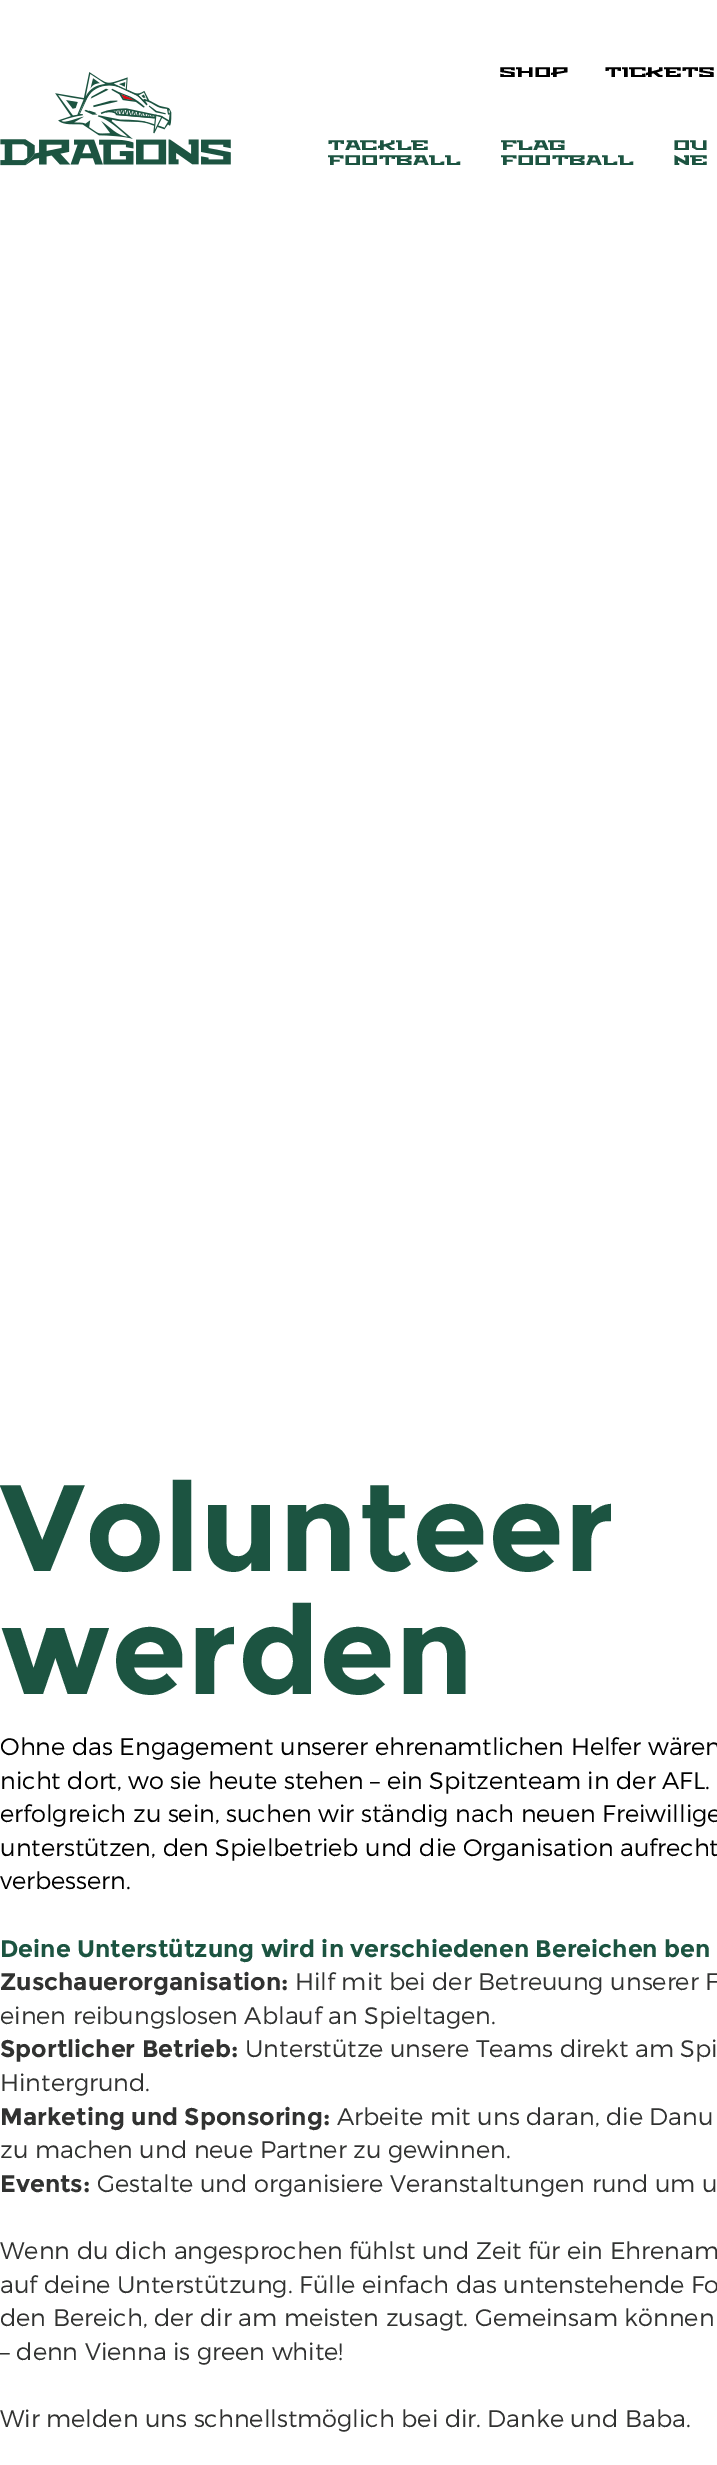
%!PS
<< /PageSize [717 2465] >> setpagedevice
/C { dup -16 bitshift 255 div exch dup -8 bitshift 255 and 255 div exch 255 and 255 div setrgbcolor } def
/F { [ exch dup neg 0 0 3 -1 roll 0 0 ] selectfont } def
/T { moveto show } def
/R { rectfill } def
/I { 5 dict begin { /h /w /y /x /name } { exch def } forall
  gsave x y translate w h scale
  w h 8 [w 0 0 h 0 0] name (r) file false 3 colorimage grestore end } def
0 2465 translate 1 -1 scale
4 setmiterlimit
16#FFFFFF C
0 0 717 2465 R
(1.rgb) 0 72 231 94 I
/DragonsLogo-Regular 14 F
16#1C5441 C
(TACKLE) 328 150 T
(FOOTBALL) 328 165 T
16#000000 C
(SHOP) 499 77 T
(TICKETS) 605 77 T
16#1C5441 C
(FLAG) 501 150 T
(FOOTBALL) 501 165 T
(OU) 673 150 T
(NE) 673 165 T
/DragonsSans-Bold 123 F
(Volunteer) 0 1571 T
(werden) 0 1694 T
/DragonsSans-Light 24 F
16#000000 C
(Ohne das Engagement unserer ehrenamtlichen Helfer wären) 0 1755 T
(nicht dort, wo sie heute stehen – ein Spitzenteam in der AFL.) 0 1789 T
(erfolgreich zu sein, suchen wir ständig nach neuen Freiwillige) 0 1822 T
(unterstützen, den Spielbetrieb und die Organisation aufrecht) 0 1856 T
(verbessern.) 0 1889 T
/DragonsSans-Bold 24 F
16#1C5441 C
(Deine Unterstützung wird in verschiedenen Bereichen ben) 0 1957 T
16#313231 C
(Zuschauerorganisation:) 0 1990 T
/DragonsSans-Light 24 F
(Hilf mit bei der Betreuung unserer F) 295 1990 T
(einen reibungslosen Ablauf an Spieltagen.) 0 2024 T
/DragonsSans-Bold 24 F
(Sportlicher Betrieb:) 0 2057 T
/DragonsSans-Light 24 F
(Unterstütze unsere Teams direkt am Spi) 245 2057 T
(Hintergrund.) 0 2091 T
/DragonsSans-Bold 24 F
(Marketing und Sponsoring:) 0 2125 T
/DragonsSans-Light 24 F
(Arbeite mit uns daran, die Danu) 337 2125 T
(zu machen und neue Partner zu gewinnen.) 0 2158 T
/DragonsSans-Bold 24 F
(Events:) 0 2192 T
/DragonsSans-Light 24 F
(Gestalte und organisiere Veranstaltungen rund um u) 97 2192 T
(Wenn du dich angesprochen fühlst und Zeit für ein Ehrenam) 0 2259 T
(auf deine Unterstützung. Fülle einfach das untenstehende Fo) 0 2293 T
(den Bereich, der dir am meisten zusagt. Gemeinsam können) 0 2326 T
(– denn Vienna is green white!) 0 2360 T
(Wir melden uns schnellstmöglich bei dir. Danke und Baba.) 0 2427 T
showpage
